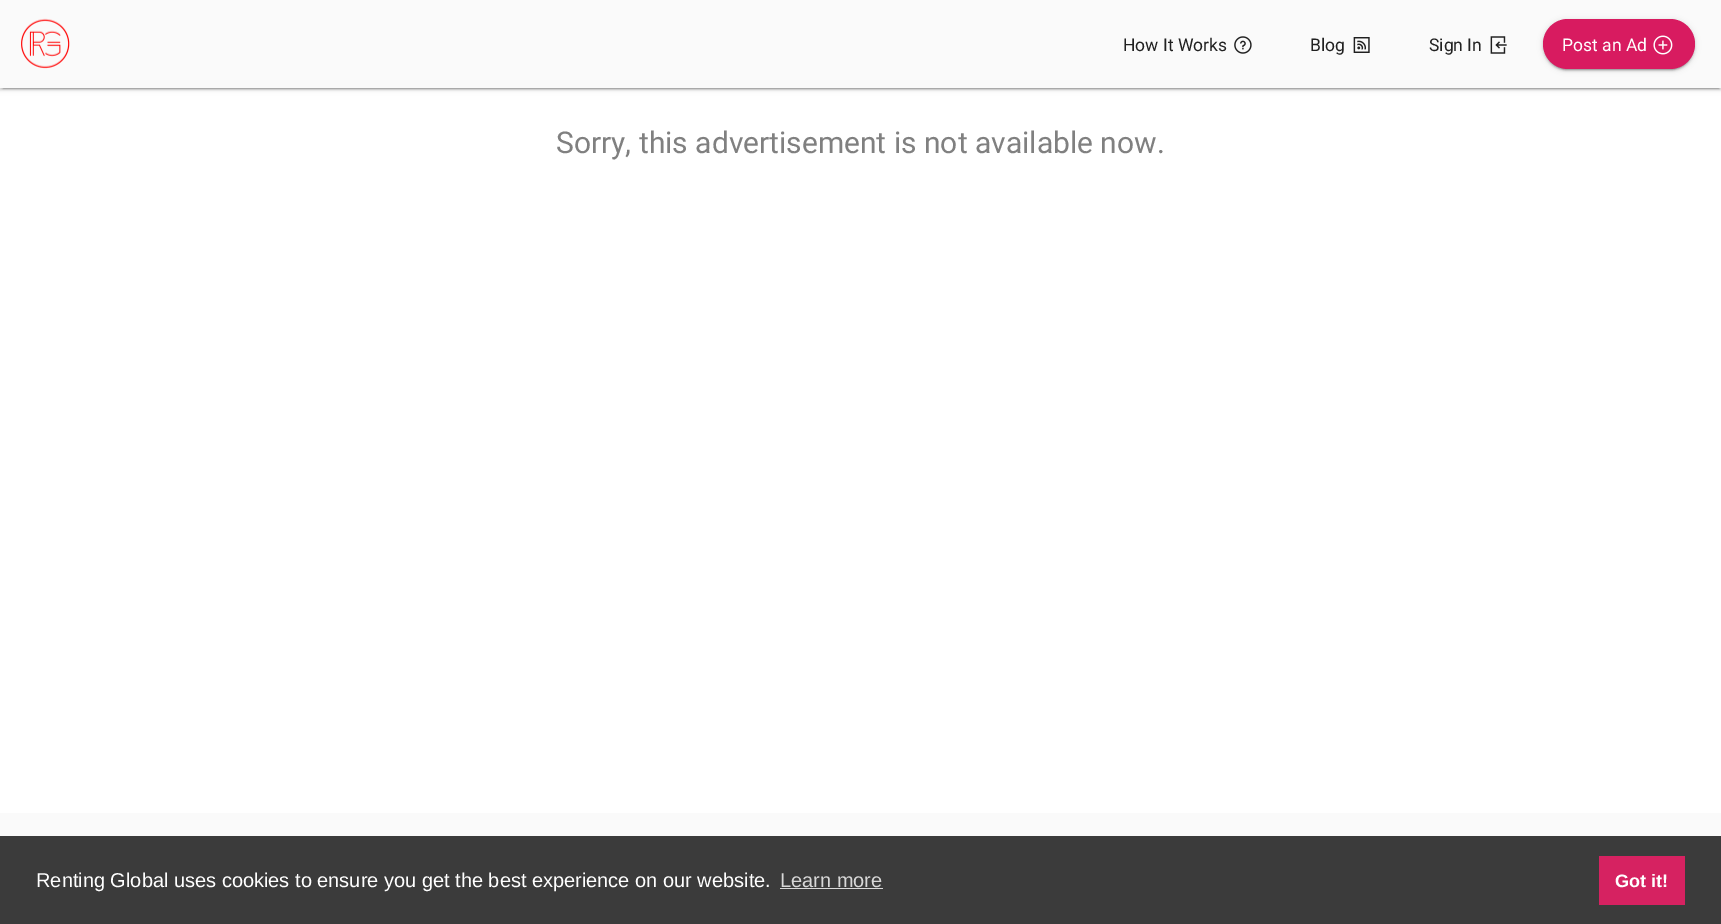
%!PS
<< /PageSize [1721 924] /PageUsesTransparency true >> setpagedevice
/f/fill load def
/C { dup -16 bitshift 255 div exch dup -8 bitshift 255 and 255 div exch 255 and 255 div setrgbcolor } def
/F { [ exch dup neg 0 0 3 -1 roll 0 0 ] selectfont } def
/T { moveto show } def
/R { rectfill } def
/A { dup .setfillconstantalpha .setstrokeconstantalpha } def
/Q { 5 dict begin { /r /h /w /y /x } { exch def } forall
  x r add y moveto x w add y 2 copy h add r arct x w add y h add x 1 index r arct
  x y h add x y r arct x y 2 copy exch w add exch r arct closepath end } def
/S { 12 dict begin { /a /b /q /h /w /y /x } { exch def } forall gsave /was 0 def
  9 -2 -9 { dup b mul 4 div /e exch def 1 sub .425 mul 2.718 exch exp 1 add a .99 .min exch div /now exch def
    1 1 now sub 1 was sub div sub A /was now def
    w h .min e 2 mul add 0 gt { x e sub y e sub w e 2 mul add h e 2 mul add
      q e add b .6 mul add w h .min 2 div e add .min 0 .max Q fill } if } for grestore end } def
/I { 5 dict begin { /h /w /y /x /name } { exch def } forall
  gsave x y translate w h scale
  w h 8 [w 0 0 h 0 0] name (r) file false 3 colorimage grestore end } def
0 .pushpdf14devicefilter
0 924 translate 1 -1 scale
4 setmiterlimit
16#FAFAFA C
0 0 1721 924 R
16#FFFFFF C
0 88 1721 725 R
16#000000 C
0 1 1721 88 0 3 .12 S
0 3 1721 87 0 1 .14 S
3 6 1716 83 0 .5 .2 S
16#FAFAFA C
0 0 1721 88 R
(1.rgb) 21 18 49 51 I
/Roboto-Regular 17.5 F
16#212121 C
(How It Works) 1123 51 T
(2.rgb) 1234 36 18 18 I
(Blog) 1310 51 T
(3.rgb) 1353 37 17 16 I
(Sign In) 1429 51 T
(4.rgb) 1490 36 17 18 I
16#000000 C
1543 20 152 50 25 3 .12 S
1543 21 152 50 25 1 .14 S
1545 25 148 45 22.5 .5 .2 S
16#D81B60 C
1543 19 152 50 25 Q f
16#FFFFFF C
(Post an Ad) 1562 51 T
(5.rgb) 1653 35 20 20 I
/Roboto-Regular 30 F
16#808080 C
(Sorry, this advertisement is not available now.) 556 153 T
16#3B3B3B C
0 836 1721 88 R
/LiberationSans-Regular 20 F
16#FFFFFF C
(Renting Global uses cookies to ensure you get the best experience on our website.) 36 887 T
16#D8D8D8 C
(Learn more) 780 887 T
780 888 103 1 R
16#D62261 C
1599 856 86 49 R
/LiberationSans-Bold 18 F
16#FFFFFF C
(Got it!) 1615 887 T
.poppdf14devicefilter showpage
